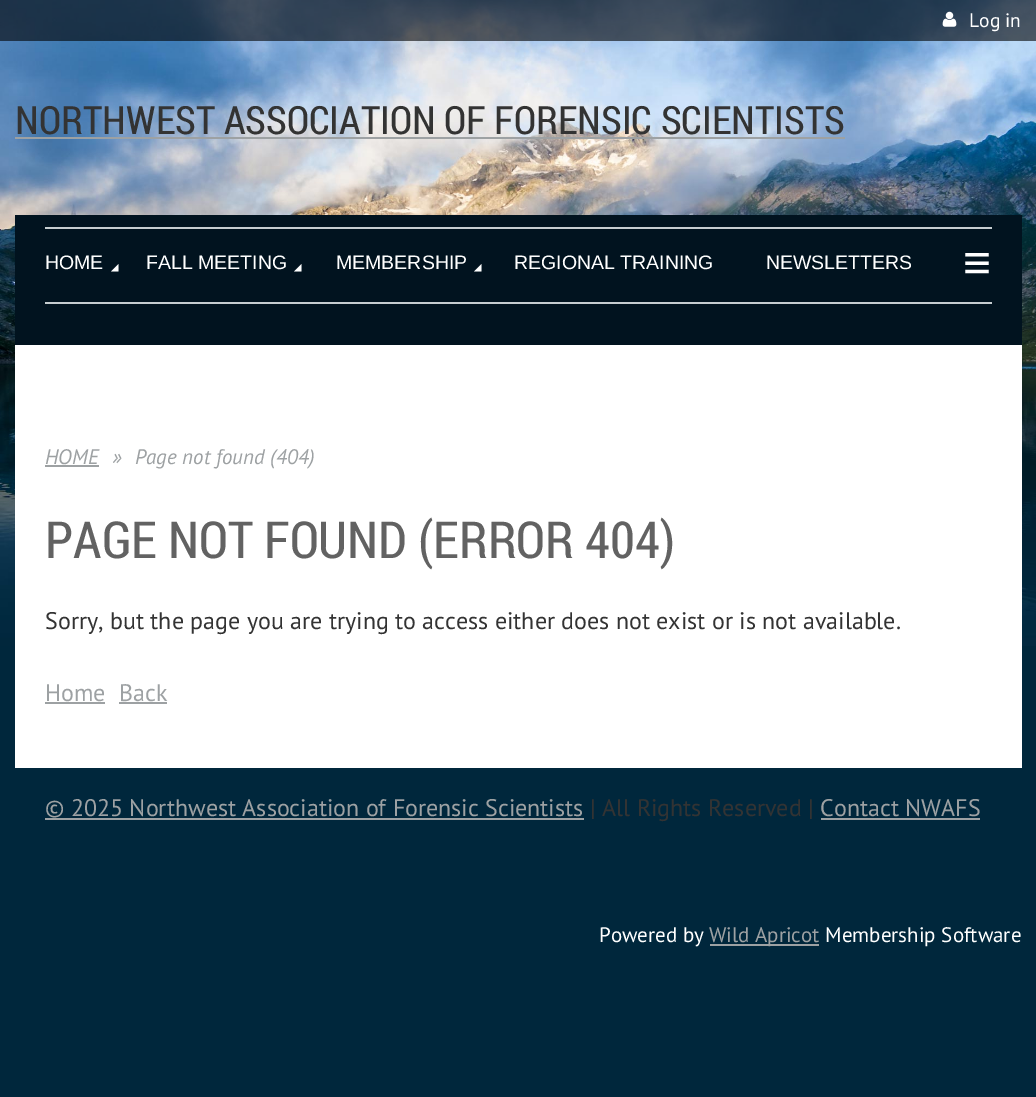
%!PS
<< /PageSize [1036 1097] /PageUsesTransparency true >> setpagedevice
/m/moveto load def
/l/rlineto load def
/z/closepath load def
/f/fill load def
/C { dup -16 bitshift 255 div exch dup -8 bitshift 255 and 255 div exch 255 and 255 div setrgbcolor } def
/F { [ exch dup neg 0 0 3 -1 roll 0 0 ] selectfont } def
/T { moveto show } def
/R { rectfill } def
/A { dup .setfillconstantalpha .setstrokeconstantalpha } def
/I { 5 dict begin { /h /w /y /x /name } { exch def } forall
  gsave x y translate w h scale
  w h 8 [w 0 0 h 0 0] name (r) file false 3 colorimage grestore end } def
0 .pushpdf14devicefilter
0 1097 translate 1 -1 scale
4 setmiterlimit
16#00273C C
0 0 1036 1097 R
(1.rgb) 0 0 1036 646 I
0.6 A
16#000000 C
0 0 1036 41 R
1 A
(2.rgb) 942 11 15 16 I
/PTSans-Regular 19.5 F
16#FFFFFF C
(Log in) 969 27 T
/RobotoCondensed-Regular 39 F
16#333333 C
(NORTHWEST ASSOCIATION OF FORENSIC SCIENTISTS) 15 134 T
16#9DA1A3 C
15 137 830 2 R
16#01131F C
15 215 1007 130 R
16#C6CDD0 C
45 227 947 2 R
45 302 947 2 R
/LiberationSans-Regular 19.5 F
16#FFFFFF C
(HOME) 45 269 T
118.5 271.5 m -7.5 0 l 7.5 -7.5 l z f
(FALL MEETING) 146 269 T
301.5 271.5 m -7.5 0 l 7.5 -7.5 l z f
(MEMBERSHIP) 336 269 T
481.5 271.5 m -7.5 0 l 7.5 -7.5 l z f
(REGIONAL TRAINING) 514 269 T
(NEWSLETTERS) 766 269 T
/LiberationSans-Regular 48 F
(≡) 963 279 T
15 345 1007 423 R
/PTSans-Italic 21 F
16#9DA1A3 C
(HOME) 45 464 T
45 465 54 2 R
(») 112 464 T
(Page not found \(404\)) 135 464 T
/RobotoCondensed-Regular 51 F
16#626262 C
(PAGE NOT FOUND \(ERROR 404\)) 45 558 T
/PTSans-Regular 24 F
16#333333 C
(Sorry, but the page you are trying to access either does not exist or is not available.) 45 629 T
16#9DA1A3 C
(Home) 45 701 T
45 702 60 2 R
(Back) 119 701 T
119 702 48 2 R
(© 2025 Northwest Association of Forensic Scientists) 45 816 T
45 818 539 2 R
16#333333 C
(| All Rights Reserved |) 590 816 T
16#9DA1A3 C
(Contact NWAFS) 820 816 T
821 818 159 2 R
/PTSans-Regular 21 F
16#FFFFFF C
(Powered by) 599 942 T
16#9DA1A3 C
710 944 109 2 R
(Wild Apricot) 709 942 T
16#FFFFFF C
(Membership Software) 825 942 T
.poppdf14devicefilter showpage
